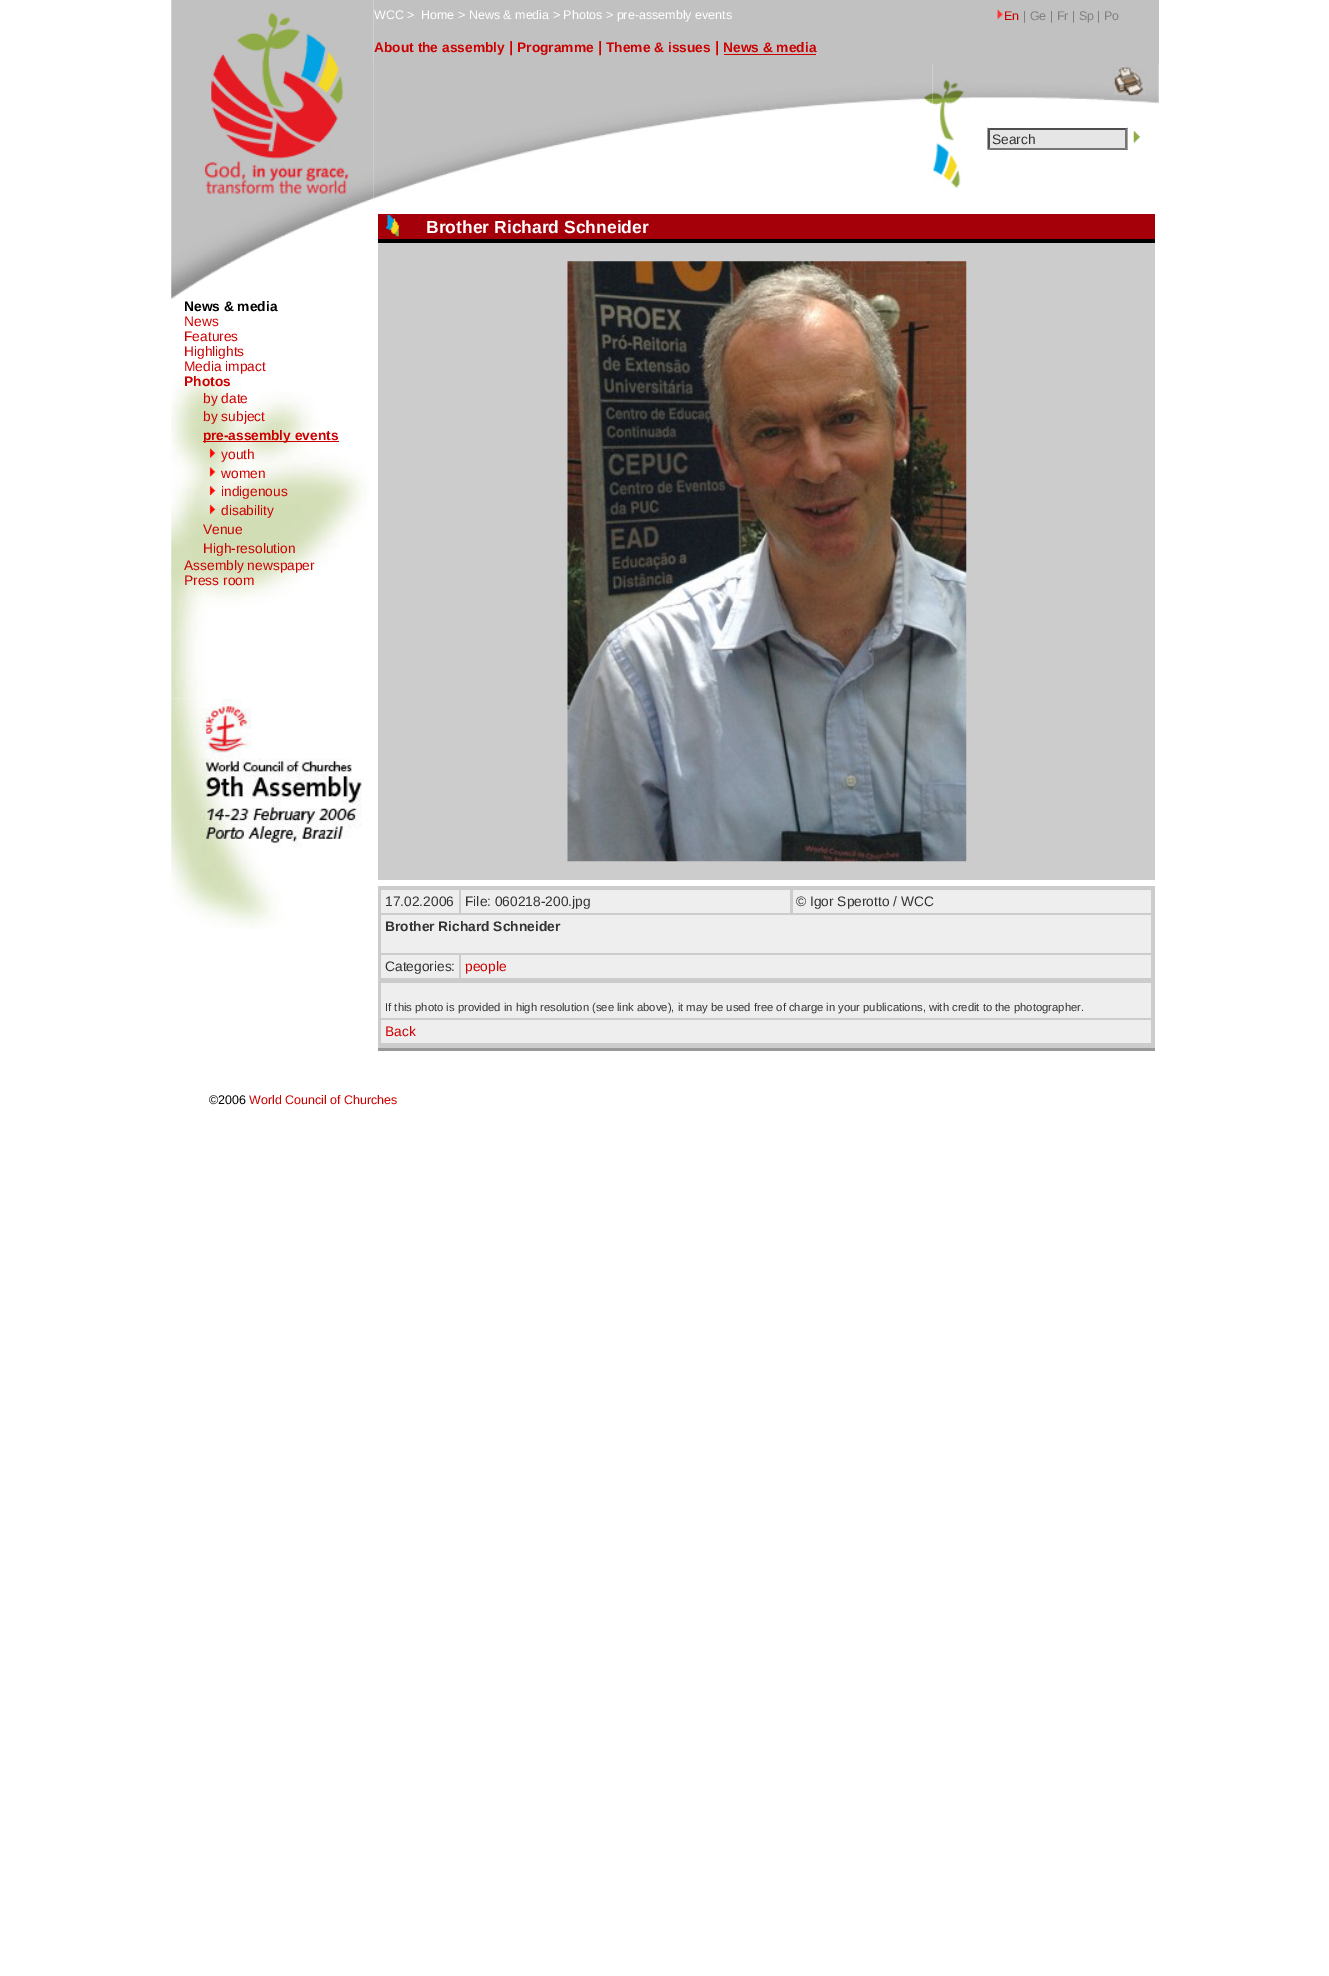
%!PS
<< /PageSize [1329 1976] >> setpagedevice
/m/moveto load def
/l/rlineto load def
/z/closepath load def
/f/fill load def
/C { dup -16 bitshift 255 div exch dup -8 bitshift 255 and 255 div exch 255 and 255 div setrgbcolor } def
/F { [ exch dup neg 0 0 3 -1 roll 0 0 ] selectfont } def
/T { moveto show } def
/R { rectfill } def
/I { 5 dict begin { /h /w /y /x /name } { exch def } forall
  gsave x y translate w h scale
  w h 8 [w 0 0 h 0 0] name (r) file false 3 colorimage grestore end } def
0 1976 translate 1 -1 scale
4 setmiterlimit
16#FFFFFF C
0 0 1329 1976 R
(1.rgb) 171 0 203 200 I
16#C1C1C1 C
374 0 785 64 R
/LiberationSans-Regular 12.5 F
16#FFFFFF C
(WCC >) 374 19 T
(Home > News & media > Photos > pre-assembly events) 421 19 T
(2.rgb) 997 9 6 10 I
16#CC0000 C
(En) 1004 20 T
16#808080 C
(| Ge | Fr | Sp | Po) 1023 20 T
/LiberationSans-Bold 13.75 F
16#CC0000 C
(About the assembly) 374 52 T
/LiberationSans-Bold 15 F
(|) 509 52 T
/LiberationSans-Bold 13.75 F
(Programme) 517 52 T
/LiberationSans-Bold 15 F
(|) 598 52 T
/LiberationSans-Bold 13.75 F
(Theme & issues) 606 52 T
/LiberationSans-Bold 15 F
(|) 715 52 T
/LiberationSans-Bold 13.75 F
(News & media) 723 52 T
724 54 92 1 R
(3.rgb) 373 64 560 135 I
(4.rgb) 932 64 33 124 I
(5.rgb) 965 64 194 40 I
16#E6E6E6 C
988 128 140 22 R
16#4F4F4F C
988 128 m 140 0 l -3 2 l -135 0 l z f
16#767676 C
1127.5 127.5 m 0 22.5 l -2.5 -2.5 l 0 -17.5 l z f
1128 150 m -140 0 l 2 -2 l 135 0 l z f
16#4F4F4F C
987.5 150 m 0 -22.5 l 2.5 2.5 l 0 17.5 l z f
/LiberationSans-Regular 13.75 F
16#333333 C
(Search) 992 144 T
(6.rgb) 1133 131 7 12 I
(7.rgb) 171 200 198 99 I
(8.rgb) 171 371 198 328 I
/LiberationSans-Bold 13.75 F
16#000000 C
(News & media) 184 311 T
/LiberationSans-Regular 13.75 F
16#CC0000 C
(News) 184 326 T
(Features) 184 341 T
(Highlights) 184 356 T
(Media impact) 184 371 T
/LiberationSans-Bold 13.75 F
(Photos) 184 386 T
/LiberationSans-Regular 13.75 F
(by date) 203 403 T
(by subject) 203 421 T
203 441 13 1 R
/LiberationSans-Bold 13.75 F
(pr) 203 440 T
216 441 123 1 R
(e-assembly events) 216 440 T
(9.rgb) 209 448 7 10 I
/LiberationSans-Regular 13.75 F
(youth) 221 459 T
(10.rgb) 209 467 7 10 I
(women) 221 478 T
(11.rgb) 209 486 7 9 I
(indigenous) 221 496 T
(12.rgb) 209 504 7 10 I
(disability) 221 515 T
(Venue) 203 534 T
(High-resolution) 203 553 T
(Assembly newspaper) 184 570 T
(Press room) 184 585 T
(13.rgb) 171 698 191 231 I
16#A5000A C
378 214 777 25 R
(14.rgb) 386 215 13 22 I
16#000000 C
378 239 777 4 R
/LiberationSans-Bold 17.5 F
16#FFFFFF C
(Brother Richard Schneider) 426 233 T
16#CCCCCC C
378 243 777 637 R
(15.rgb) 567 261 400 601 I
378 886 777 162 R
16#999999 C
378 1048 777 3 R
16#EEEEEE C
381 890 78 23 R
/LiberationSans-Regular 13.75 F
16#333333 C
(17.02.2006) 385 906 T
16#EEEEEE C
461 890 329 23 R
16#333333 C
(File: 060218-200.jpg) 465 906 T
16#EEEEEE C
793 890 358 23 R
16#333333 C
(© Igor Sperotto / WCC) 796 906 T
16#EEEEEE C
381 915 770 38 R
/LiberationSans-Bold 13.75 F
16#333333 C
(Brother Richard Schneider) 385 931 T
16#EEEEEE C
381 955 78 23 R
/LiberationSans-Regular 13.75 F
16#333333 C
(Categories:) 385 971 T
16#EEEEEE C
461 955 690 23 R
16#CC0000 C
(people) 465 971 T
16#EEEEEE C
381 983 770 35 R
/LiberationSans-Regular 11.25 F
16#333333 C
(If this photo is provided in high resolution \(see link above\), it may be used free of charge in your publications, with credit to the photographer.) 385 1011 T
16#EEEEEE C
381 1020 770 23 R
/LiberationSans-Regular 13.75 F
16#CC0000 C
(Back) 385 1036 T
/LiberationSans-Regular 12.5 F
16#000000 C
(©2006) 209 1104 T
16#CC0000 C
(World Council of Churches) 249 1104 T
showpage
